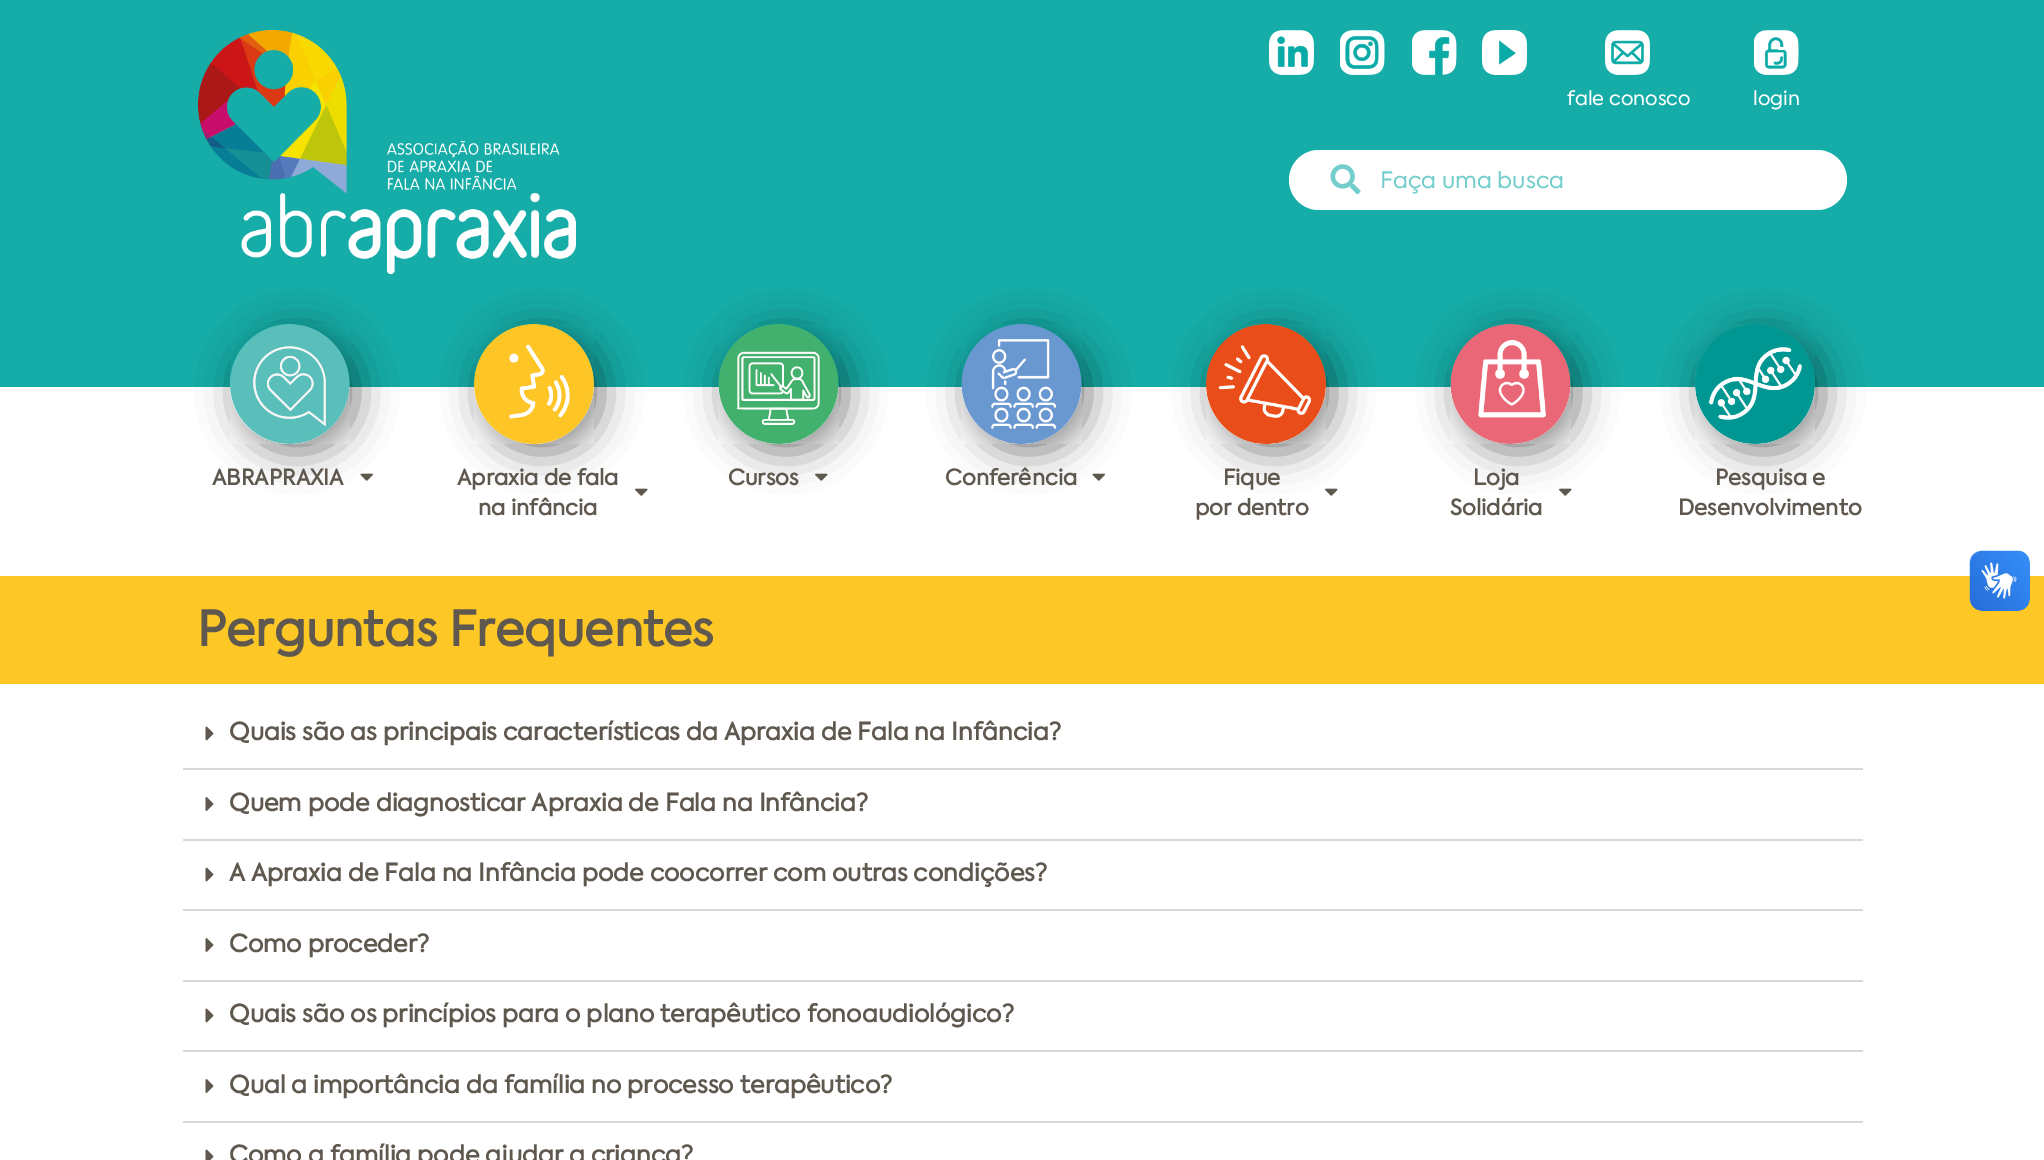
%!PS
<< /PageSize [2044 1160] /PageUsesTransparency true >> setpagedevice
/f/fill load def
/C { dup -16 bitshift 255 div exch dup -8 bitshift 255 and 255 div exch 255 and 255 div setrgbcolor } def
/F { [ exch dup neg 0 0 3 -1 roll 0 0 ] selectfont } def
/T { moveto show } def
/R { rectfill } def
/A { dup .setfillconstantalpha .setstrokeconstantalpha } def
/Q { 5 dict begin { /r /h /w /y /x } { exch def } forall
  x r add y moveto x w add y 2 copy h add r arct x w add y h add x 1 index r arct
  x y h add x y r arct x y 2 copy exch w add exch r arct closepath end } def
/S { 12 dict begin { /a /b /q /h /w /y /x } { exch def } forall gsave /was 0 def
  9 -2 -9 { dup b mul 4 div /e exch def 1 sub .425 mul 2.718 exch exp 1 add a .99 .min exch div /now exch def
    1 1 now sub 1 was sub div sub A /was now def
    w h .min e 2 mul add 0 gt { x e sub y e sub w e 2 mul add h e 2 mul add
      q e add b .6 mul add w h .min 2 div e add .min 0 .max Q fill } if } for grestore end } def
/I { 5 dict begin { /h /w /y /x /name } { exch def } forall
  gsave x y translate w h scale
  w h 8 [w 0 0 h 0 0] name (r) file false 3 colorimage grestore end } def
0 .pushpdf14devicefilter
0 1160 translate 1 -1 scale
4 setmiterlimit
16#FFFFFF C
0 0 2044 1160 R
16#16ACA7 C
0 0 2044 387 R
(1.rgb) 198 30 378 245 I
(2.rgb) 1269 30 45 45 I
(3.rgb) 1340 30 45 45 I
(4.rgb) 1412 30 45 45 I
(5.rgb) 1482 30 45 45 I
(6.rgb) 1605 30 45 45 I
/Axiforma-Regular 19.5 F
16#FFFFFF C
(fale conosco) 1567 105 T
(7.rgb) 1754 30 45 45 I
(login) 1753 105 T
1289 150 558 60 30 Q f
(8.rgb) 1330 164 31 31 I
/Axiforma-Regular 22.5 F
16#73CDCA C
(Faça uma busca) 1380 188 T
16#000000 C
237 332 120 120 60 19 .5 S
(9.rgb) 230 324 120 120 I
/Axiforma-Bold 21.5 F
16#5F584F C
(ABRAPRAXIA) 212 485 T
(10.rgb) 360 473 13 8 I
16#000000 C
482 332 120 120 60 19 .5 S
(11.rgb) 474 324 120 120 I
16#5F584F C
(Apraxia de fala) 457 485 T
(12.rgb) 635 488 13 8 I
(na infância) 478 515 T
16#000000 C
726 332 120 120 60 19 .5 S
(13.rgb) 718 324 121 120 I
16#5F584F C
(Cursos) 728 485 T
(14.rgb) 815 473 13 8 I
16#000000 C
969 332 120 120 60 19 .5 S
(15.rgb) 961 324 121 120 I
16#5F584F C
(Conferência) 945 485 T
(10.rgb) 1092 473 13 8 I
16#000000 C
1214 332 120 120 60 19 .5 S
(16.rgb) 1206 324 120 120 I
16#5F584F C
(Fique) 1223 485 T
(17.rgb) 1325 488 13 8 I
(por dentro) 1195 515 T
16#000000 C
1458 332 120 120 60 19 .5 S
(18.rgb) 1450 324 121 120 I
16#5F584F C
(Loja) 1473 485 T
(19.rgb) 1559 488 13 8 I
(Solidária) 1450 515 T
16#000000 C
1703 332 120 120 60 19 .5 S
(20.rgb) 1695 324 120 120 I
16#5F584F C
(Pesquisa e) 1715 485 T
(Desenvolvimento) 1678 515 T
16#FDC725 C
0 576 2044 108 R
(21.rgb) 1969 550 61 61 I
(22.rgb) 1970 551 60 60 I
/Axiforma-Bold 48 F
16#5F584F C
(Perguntas Frequentes) 197 646 T
16#D5D8DC C
183 768 1680 2 R
(23.rgb) 205 726 9 15 I
/Axiforma-Bold 24 F
16#5F584F C
(Quais são as principais características da Apraxia de Fala na Infância?) 229 740 T
16#D5D8DC C
183 839 1680 2 R
(24.rgb) 205 797 9 14 I
16#5F584F C
(Quem pode diagnosticar Apraxia de Fala na Infância?) 229 811 T
16#D5D8DC C
183 909 1680 2 R
(23.rgb) 205 867 9 15 I
16#5F584F C
(A Apraxia de Fala na Infância pode coocorrer com outras condições?) 229 881 T
16#D5D8DC C
183 980 1680 2 R
(24.rgb) 205 938 9 14 I
16#5F584F C
(Como proceder?) 229 952 T
16#D5D8DC C
183 1050 1680 2 R
(23.rgb) 205 1008 9 15 I
16#5F584F C
(Quais são os princípios para o plano terapêutico fonoaudiológico?) 229 1022 T
16#D5D8DC C
183 1121 1680 2 R
(24.rgb) 205 1079 9 14 I
16#5F584F C
(Qual a importância da família no processo terapêutico?) 229 1093 T
(25.rgb) 205 1149 9 11 I
(Como a família pode ajudar a criança?) 229 1163 T
.poppdf14devicefilter showpage
